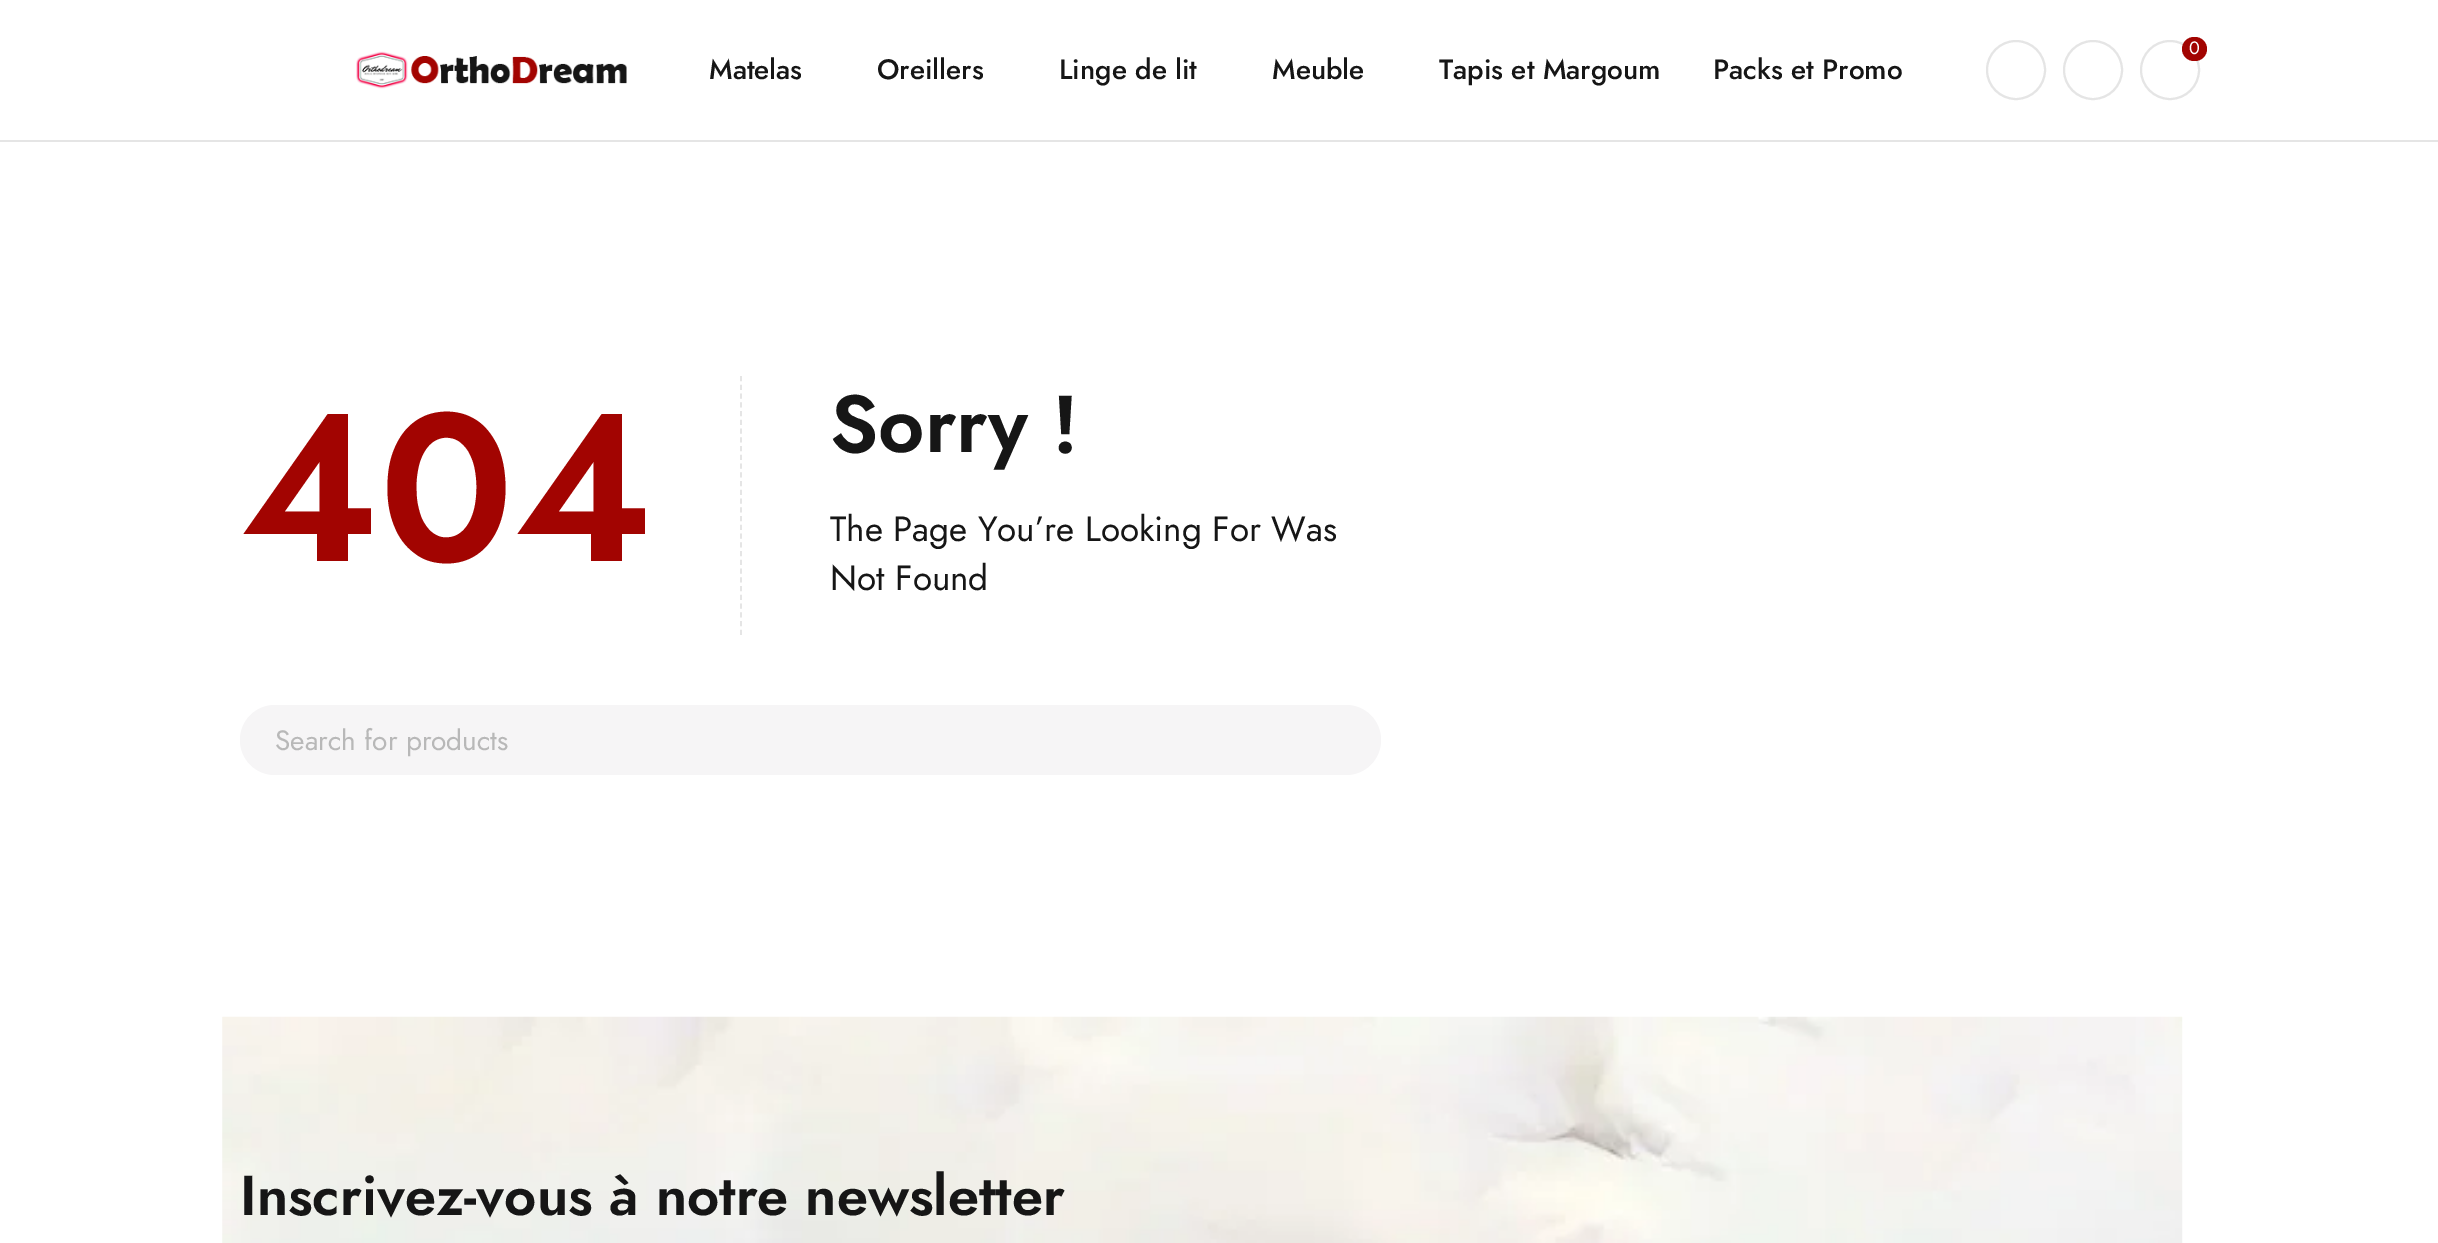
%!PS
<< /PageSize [2438 1243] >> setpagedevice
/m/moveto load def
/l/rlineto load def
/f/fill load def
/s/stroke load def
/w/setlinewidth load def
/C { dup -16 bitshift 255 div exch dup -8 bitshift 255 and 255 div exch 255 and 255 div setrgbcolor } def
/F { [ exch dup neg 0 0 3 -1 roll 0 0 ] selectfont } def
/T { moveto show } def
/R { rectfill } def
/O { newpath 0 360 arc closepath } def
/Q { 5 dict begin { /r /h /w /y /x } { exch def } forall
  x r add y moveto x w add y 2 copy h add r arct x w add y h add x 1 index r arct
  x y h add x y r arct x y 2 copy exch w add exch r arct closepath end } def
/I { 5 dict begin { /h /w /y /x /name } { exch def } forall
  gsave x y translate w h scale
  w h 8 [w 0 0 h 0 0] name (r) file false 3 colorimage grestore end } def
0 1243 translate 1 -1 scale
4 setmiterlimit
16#FFFFFF C
0 0 2438 1243 R
16#E5E5E5 C
2 w
2016 70 29 O s
2093 70 29 O s
2170 70 29 O s
16#A20401 C
2182 37 25 24 12 Q f
/Jost-Regular 18 F
16#FFFFFF C
(0) 2189 54 T
(1.rgb) 356 51 271 38 I
/Jost-Medium 28 F
16#161616 C
(Matelas) 709 79 T
(Oreillers) 877 79 T
(Linge de lit) 1059 79 T
(Meuble) 1272 79 T
(Tapis et Margoum) 1439 79 T
(Packs et Promo) 1713 79 T
16#E5E5E5 C
0 140 2438 2 R
/Jost-SemiBold 210 F
16#A20401 C
(404) 240 561 T
16#E5E5E5 C
1.8 w
[5.25 3.5] 0 setdash
741 376 m 0 259 l s
/Jost-SemiBold 80.5 F
16#161616 C
(Sorry !) 830 452 T
/Jost-Regular 35 F
(The Page You’re Looking For Was) 830 541 T
(Not Found) 830 590 T
16#F6F5F6 C
240 705 1141 70 35 Q f
/Jost-Regular 28 F
16#B8B8B8 C
(Search for products) 275 750 T
(2.rgb) 222 1016 1961 227 I
/Jost-SemiBold 56 F
16#161616 C
(Inscrivez-vous à notre newsletter) 240 1215 T
showpage
